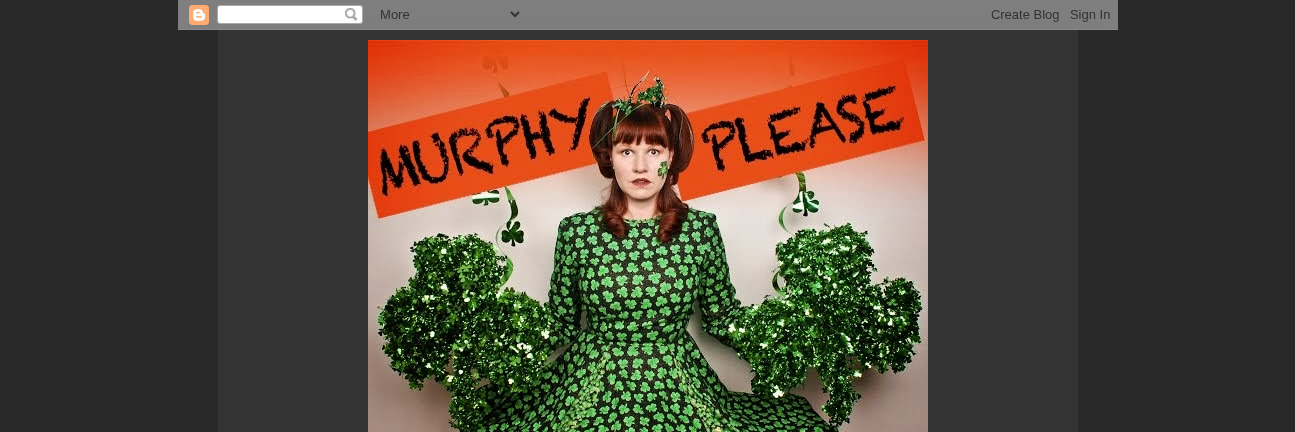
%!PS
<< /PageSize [1295 432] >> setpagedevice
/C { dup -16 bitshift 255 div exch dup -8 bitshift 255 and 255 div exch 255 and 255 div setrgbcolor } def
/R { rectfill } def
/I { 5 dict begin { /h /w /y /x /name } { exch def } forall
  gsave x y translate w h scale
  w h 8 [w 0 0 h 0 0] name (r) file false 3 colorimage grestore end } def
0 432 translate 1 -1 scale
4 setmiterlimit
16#292929 C
0 0 1295 432 R
(1.rgb) 178 0 940 30 I
16#333333 C
218 30 860 402 R
(2.rgb) 368 40 560 392 I
showpage
